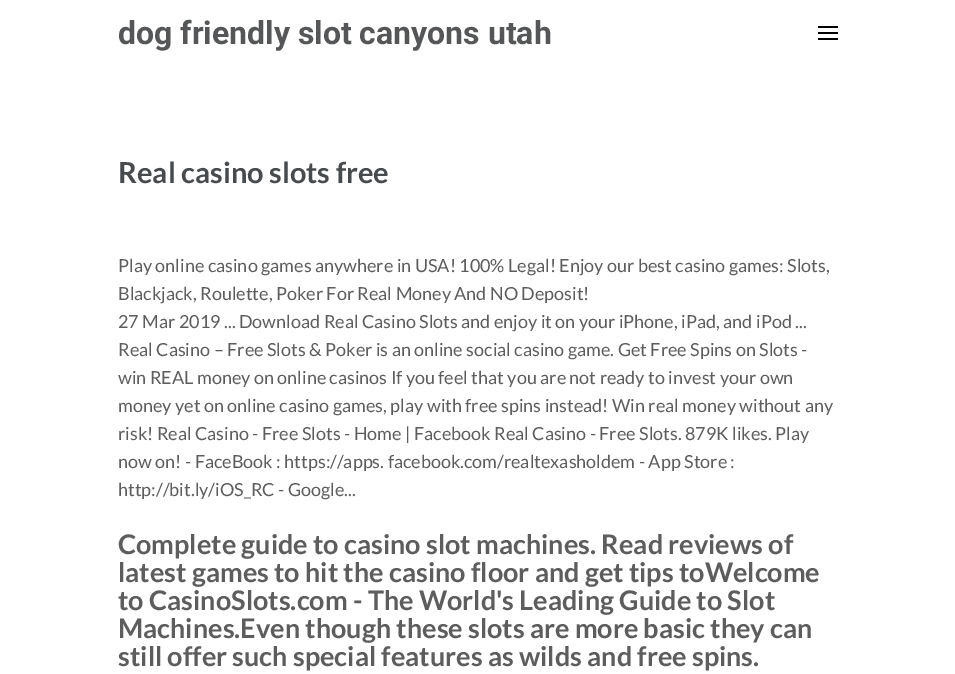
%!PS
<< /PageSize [955 674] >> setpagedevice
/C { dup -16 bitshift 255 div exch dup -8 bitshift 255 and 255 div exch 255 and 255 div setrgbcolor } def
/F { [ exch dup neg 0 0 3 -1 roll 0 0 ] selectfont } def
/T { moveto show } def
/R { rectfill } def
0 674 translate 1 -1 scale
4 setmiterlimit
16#FFFFFF C
0 0 955 674 R
/Roboto-Bold 32 F
16#555658 C
(dog friendly slot canyons utah) 118 44 T
16#000000 C
818 26 20 2 R
818 32 20 2 R
818 38 20 2 R
/Lato-Bold 29 F
16#474B4E C
(Real casino slots free) 118 183 T
/Lato-Regular 18 F
16#5D5D5D C
(Play online casino games anywhere in USA! 100% Legal! Enjoy our best casino games: Slots,) 118 272 T
(Blackjack, Roulette, Poker For Real Money And NO Deposit!) 118 300 T
(27 Mar 2019 ... Download Real Casino Slots and enjoy it on your iPhone, iPad, and iPod ...) 118 328 T
(Real Casino – Free Slots & Poker is an online social casino game. Get Free Spins on Slots -) 118 356 T
(win REAL money on online casinos If you feel that you are not ready to invest your own) 118 384 T
(money yet on online casino games, play with free spins instead! Win real money without any) 118 412 T
(risk! Real Casino - Free Slots - Home | Facebook Real Casino - Free Slots. 879K likes. Play) 118 440 T
(now on! - FaceBook : https://apps. facebook.com/realtexasholdem - App Store :) 118 468 T
(http://bit.ly/iOS_RC - Google...) 118 496 T
/Lato-Bold 27 F
(Complete guide to casino slot machines. Read reviews of) 118 554 T
(latest games to hit the casino floor and get tips toWelcome) 118 582 T
(to CasinoSlots.com - The World's Leading Guide to Slot) 118 610 T
(Machines.Even though these slots are more basic they can) 118 638 T
(still offer such special features as wilds and free spins.) 118 666 T
showpage
